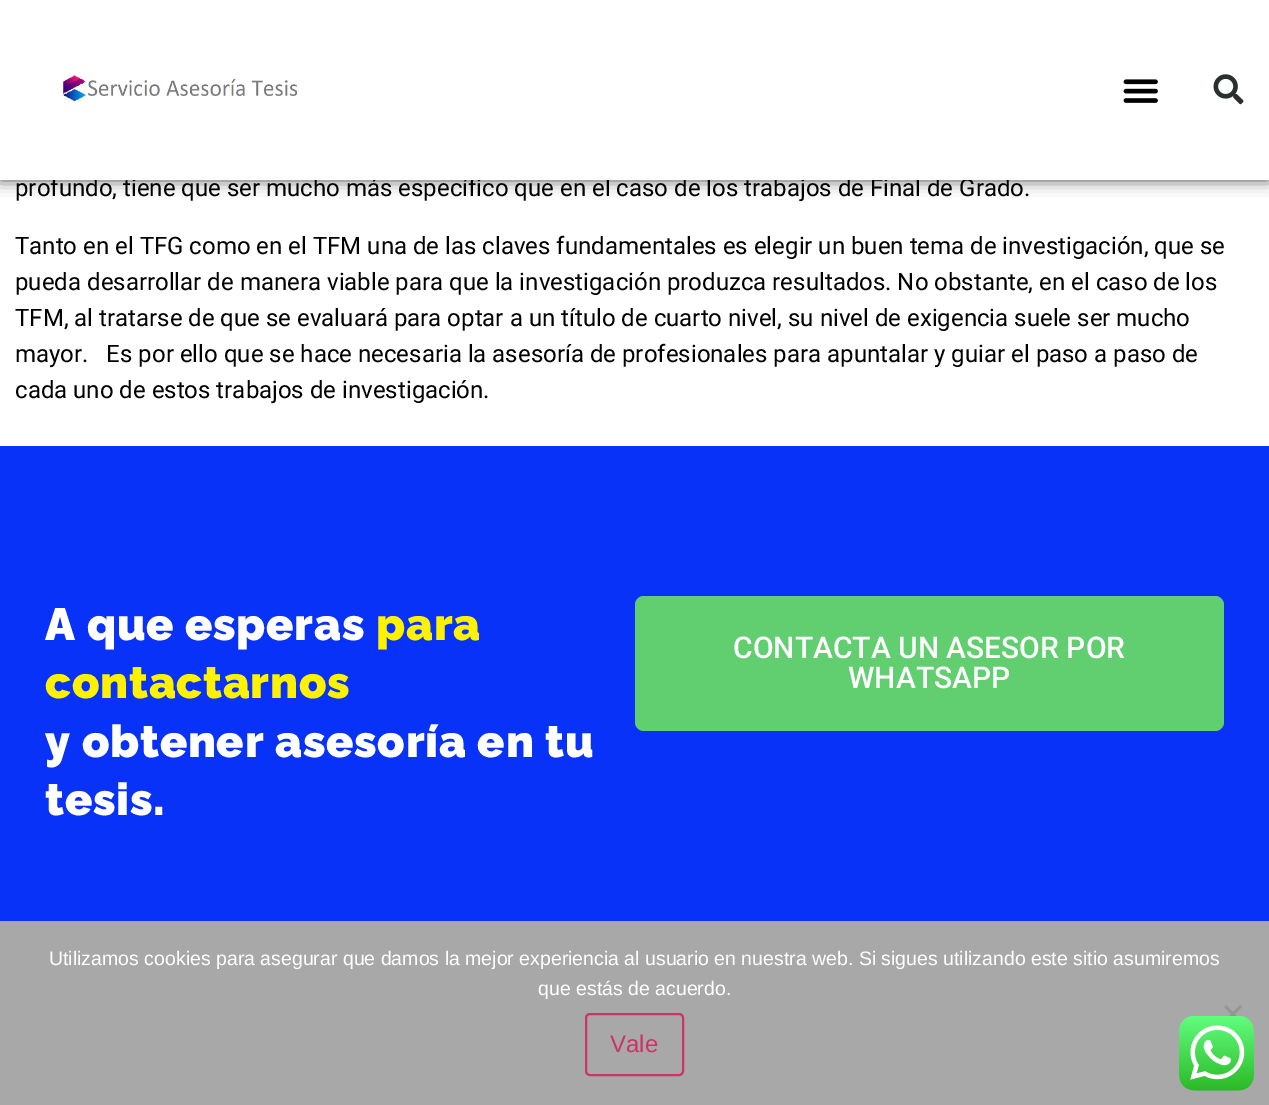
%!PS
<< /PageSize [1269 1105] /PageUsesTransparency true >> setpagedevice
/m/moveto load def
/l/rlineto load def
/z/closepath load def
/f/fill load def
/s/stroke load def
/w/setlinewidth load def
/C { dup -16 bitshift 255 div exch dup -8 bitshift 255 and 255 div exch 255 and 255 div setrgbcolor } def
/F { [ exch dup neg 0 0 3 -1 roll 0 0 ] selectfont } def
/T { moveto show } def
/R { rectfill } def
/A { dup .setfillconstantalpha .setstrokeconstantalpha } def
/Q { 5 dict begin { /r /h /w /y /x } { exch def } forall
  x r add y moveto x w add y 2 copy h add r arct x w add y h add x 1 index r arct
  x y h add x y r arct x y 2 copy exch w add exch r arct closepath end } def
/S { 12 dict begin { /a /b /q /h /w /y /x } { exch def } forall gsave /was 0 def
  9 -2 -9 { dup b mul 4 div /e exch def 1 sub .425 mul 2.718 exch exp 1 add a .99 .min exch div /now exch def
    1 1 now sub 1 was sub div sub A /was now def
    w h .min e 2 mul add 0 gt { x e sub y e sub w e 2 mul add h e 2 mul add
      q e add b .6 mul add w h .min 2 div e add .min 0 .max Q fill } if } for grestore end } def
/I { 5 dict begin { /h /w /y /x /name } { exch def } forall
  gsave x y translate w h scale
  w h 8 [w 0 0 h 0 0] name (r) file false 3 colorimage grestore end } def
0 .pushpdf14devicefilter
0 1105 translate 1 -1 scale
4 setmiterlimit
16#FFFFFF C
0 0 1269 1105 R
16#000000 C
0 0 1269 180 0 7.5 .69 S
/Roboto-Regular 24 F
(profundo, tiene que ser mucho más específico que en el caso de los trabajos de Final de Grado.) 15 196 T
16#FFFFFF C
0 0 1269 180 R
(1.rgb) 63 75 235 27 I
(2.rgb) 1123 79 35 24 I
(3.rgb) 1213 74 31 31 I
16#000000 C
(Tanto en el TFG como en el TFM una de las claves fundamentales es elegir un buen tema de investigación, que se) 15 254 T
(pueda desarrollar de manera viable para que la investigación produzca resultados. No obstante, en el caso de los) 15 290 T
(TFM, al tratarse de que se evaluará para optar a un título de cuarto nivel, su nivel de exigencia suele ser mucho) 15 326 T
(mayor.   Es por ello que se hace necesaria la asesoría de profesionales para apuntalar y guiar el paso a paso de) 15 362 T
(cada uno de estos trabajos de investigación.) 15 398 T
16#0832F7 C
0 446 1269 475 R
/Raleway-Black 45 F
16#FFFFFF C
45 640 m .75 0 (A que esperas) ashow
16#FFF200 C
376 640 m .75 0 (para) ashow
45 698 m .75 0 (contactarnos) ashow
16#FFFFFF C
45 757 m .75 0 (y obtener asesoría en tu) ashow
45 815 m .75 0 (tesis.) ashow
16#61CE70 C
635 596 589 135 9 Q f
/Roboto-Medium 30 F
16#FFFFFF C
(CONTACTA UN ASESOR POR) 733 658 T
(WHATSAPP) 848 688 T
16#A8A8A8 C
0 921 1269 184 R
/LiberationSans-Regular 19.5 F
16#FFFFFF C
(Utilizamos cookies para asegurar que damos la mejor experiencia al usuario en nuestra web. Si sigues utilizando este sitio asumiremos) 49 965 T
(que estás de acuerdo.) 538 995 T
16#949494 C
1240 1005 m 2 2 l -16 16 l -2 -2 l z f
1224 1007 m 2 -2 l 16 16 l -2 2 l z f
16#CC3366 C
2 w
586 1014 97 61 4 Q s
/LiberationSans-Regular 24 F
(Vale) 610 1052 T
(4.rgb) 1179 1016 75 75 I
.poppdf14devicefilter showpage
